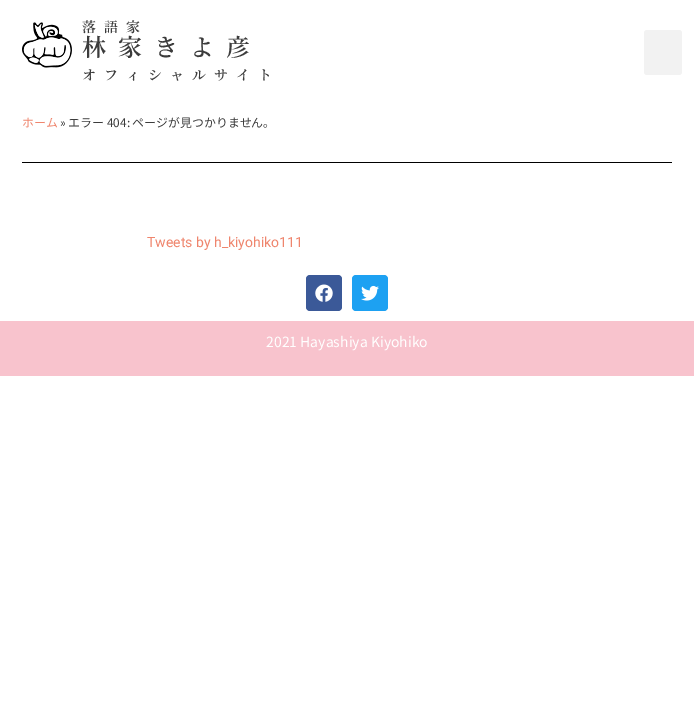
%!PS
<< /PageSize [694 704] >> setpagedevice
/m/moveto load def
/f/fill load def
/C { dup -16 bitshift 255 div exch dup -8 bitshift 255 and 255 div exch 255 and 255 div setrgbcolor } def
/F { [ exch dup neg 0 0 3 -1 roll 0 0 ] selectfont } def
/T { moveto show } def
/R { rectfill } def
/Q { 5 dict begin { /r /h /w /y /x } { exch def } forall
  x r add y moveto x w add y 2 copy h add r arct x w add y h add x 1 index r arct
  x y h add x y r arct x y 2 copy exch w add exch r arct closepath end } def
/I { 5 dict begin { /h /w /y /x /name } { exch def } forall
  gsave x y translate w h scale
  w h 8 [w 0 0 h 0 0] name (r) file false 3 colorimage grestore end } def
0 704 translate 1 -1 scale
4 setmiterlimit
16#FFFFFF C
0 0 694 704 R
(1.rgb) 22 22 50 46 I
/NotoSerifJP-SemiBold 14 F
16#3C3C3C C
82 32 m 8 0 (落語家) ashow
/NotoSerifJP-SemiBold 24 F
82 56 m 12 0 (林家きよ彦) ashow
/NotoSerifJP-SemiBold 14 F
82 80 m 8 0 (オフィシャルサイト) ashow
16#F2F2F2 C
644 30 38 45 3 Q f
/NotoSansJP-Regular 11.9 F
16#EF856D C
(ホーム) 22 127 T
16#3C3C3C C
(» エラー 404: ページが見つかりません。) 60 127 T
16#000000 C
22 162 650 1 R
/Roboto-Regular 14 F
16#EF856D C
(Tweets by h_kiyohiko111) 147 247 T
16#3B5998 C
306 275 36 36 4 Q f
(2.rgb) 315 284 18 18 I
16#1DA1F2 C
352 275 36 36 4 Q f
(3.rgb) 361 285 18 16 I
16#F8C3CD C
0 321 694 55 R
/NotoSansJP-Regular 14 F
16#FFFFFF C
(2021 Hayashiya Kiyohiko) 266 347 T
showpage
